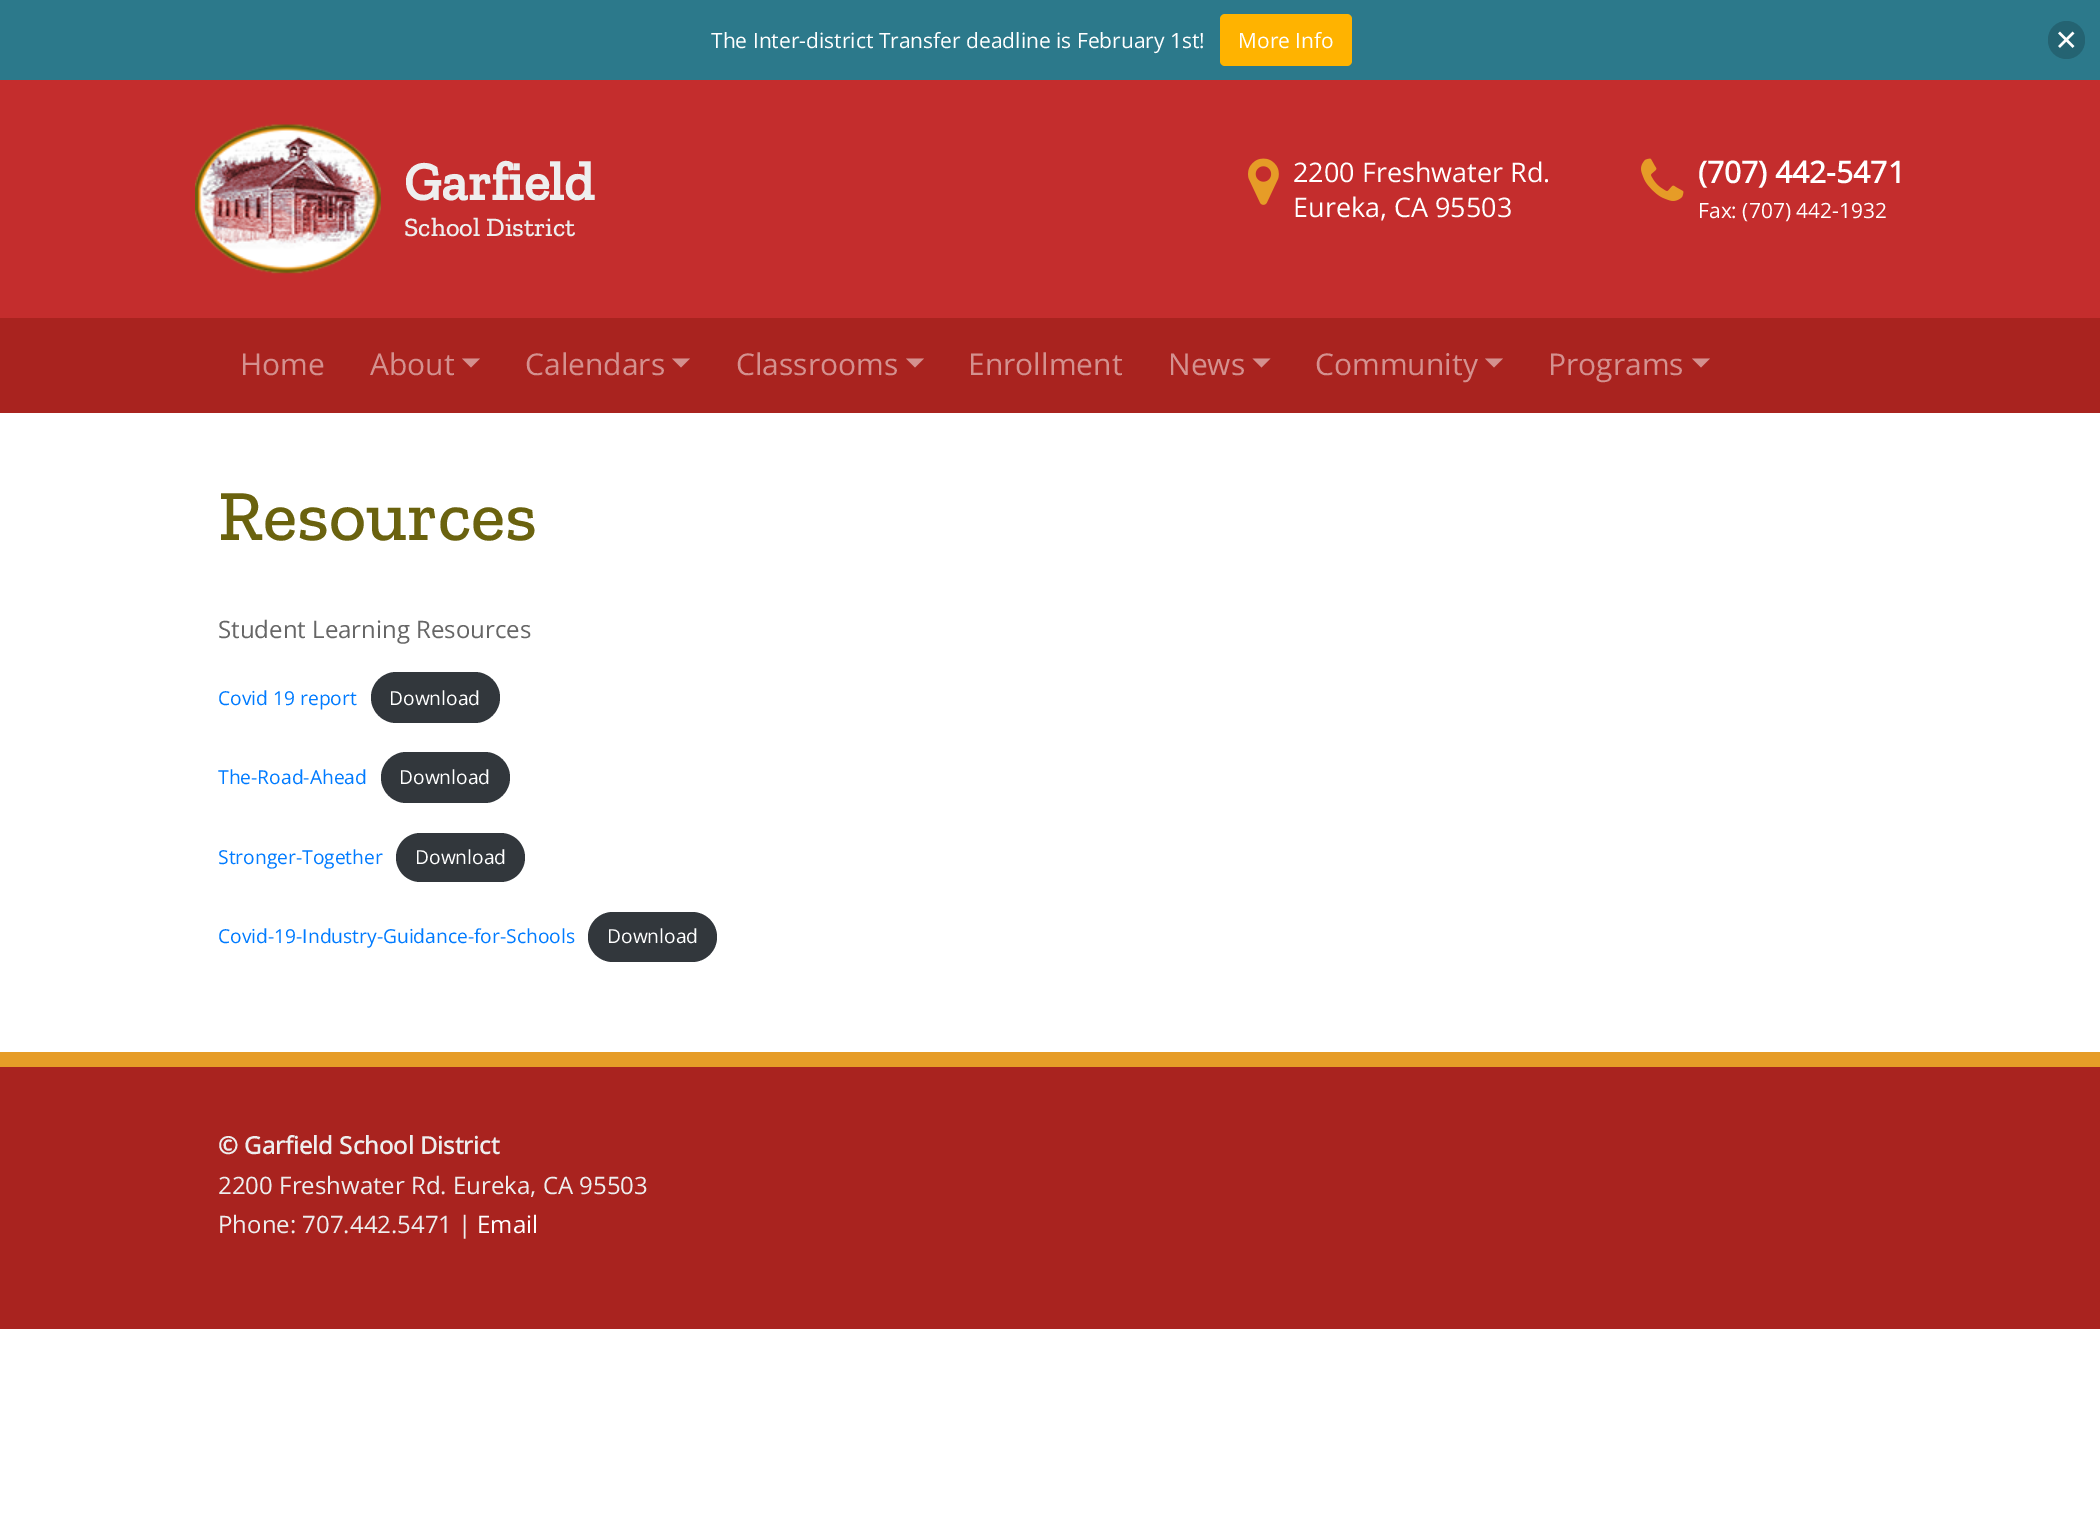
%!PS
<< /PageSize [2100 1516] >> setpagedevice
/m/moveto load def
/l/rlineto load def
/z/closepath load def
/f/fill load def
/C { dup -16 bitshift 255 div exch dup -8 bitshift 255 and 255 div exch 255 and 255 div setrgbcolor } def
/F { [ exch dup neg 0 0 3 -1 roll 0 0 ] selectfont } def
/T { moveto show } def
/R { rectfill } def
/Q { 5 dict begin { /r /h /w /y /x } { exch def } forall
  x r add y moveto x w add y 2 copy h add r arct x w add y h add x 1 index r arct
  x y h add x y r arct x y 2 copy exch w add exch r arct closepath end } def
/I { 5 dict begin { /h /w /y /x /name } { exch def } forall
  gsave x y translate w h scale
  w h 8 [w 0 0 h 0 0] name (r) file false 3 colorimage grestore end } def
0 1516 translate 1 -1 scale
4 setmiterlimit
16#FFFFFF C
0 0 2100 1516 R
16#2C798B C
0 0 2100 80 R
/OpenSans-Regular 21 F
16#FFFFFF C
(The Inter-district Transfer deadline is February 1st!) 711 48 T
16#FFB300 C
1220 14 132 52 5 Q f
16#FFFFFF C
(More Info) 1238 48 T
16#246372 C
2048 21 37 38 18.5 Q f
(1.rgb) 2058 31 17 17 I
16#C42D2D C
0 80 2100 238 R
(2.rgb) 195 124 186 150 I
/ZillaSlab-Bold 54 F
16#EEEEEE C
(Garfield) 404 200 T
/ZillaSlab-Medium 26.5 F
(School District) 404 236 T
(3.rgb) 1248 158 31 47 I
/OpenSans-Regular 27 F
16#FFFFFF C
(2200 Freshwater Rd.) 1293 182 T
(Eureka, CA 95503) 1293 217 T
(4.rgb) 1641 158 43 43 I
/OpenSans-Bold 30 F
(\(707\) 442-5471) 1698 183 T
/OpenSans-Regular 21 F
(Fax: \(707\) 442-1932) 1698 218 T
16#A9231F C
0 318 2100 95 R
/OpenSans-Regular 30 F
16#D4918F C
(Home) 240 375 T
(About) 370 375 T
462 358.5 m 18 0 l -9 9 l z f
(Calendars) 525 375 T
672 358.5 m 18 0 l -9 9 l z f
(Classrooms) 736 375 T
906 358.5 m 18 0 l -9 9 l z f
(Enrollment) 968 375 T
(News) 1168 375 T
1252.5 358.5 m 18 0 l -9 9 l z f
(Community) 1315 375 T
1485 358.5 m 18 0 l -9 9 l z f
(Programs) 1548 375 T
1692 358.5 m 18 0 l -9 9 l z f
/ZillaSlab-Medium 72 F
16#6A620E C
(Resources) 218 540 T
/OpenSans-Regular 24 F
16#666666 C
(Student Learning Resources) 218 638 T
/OpenSans-Regular 19.25 F
16#007BFF C
(Covid 19 report) 218 705 T
16#32373C C
371 672 129 51 25.5 Q f
16#FFFFFF C
(Download) 389 705 T
16#007BFF C
(The-Road-Ahead) 218 784 T
16#32373C C
381 752 129 51 25.5 Q f
16#FFFFFF C
(Download) 399 784 T
16#007BFF C
(Stronger-Together) 218 864 T
16#32373C C
396 833 129 49 24.5 Q f
16#FFFFFF C
(Download) 415 864 T
16#007BFF C
(Covid-19-Industry-Guidance-for-Schools) 218 943 T
16#32373C C
588 912 129 50 25 Q f
16#FFFFFF C
(Download) 607 943 T
16#A9231F C
0 1067 2100 262 R
16#E69C27 C
0 1052 2100 15 R
/OpenSans-Bold 24 F
16#EEEEEE C
(© Garfield School District) 218 1154 T
/OpenSans-Regular 24 F
(2200 Freshwater Rd. Eureka, CA 95503) 218 1194 T
(Phone: 707.442.5471 |) 218 1233 T
16#FFFFFF C
(Email) 477 1233 T
showpage
